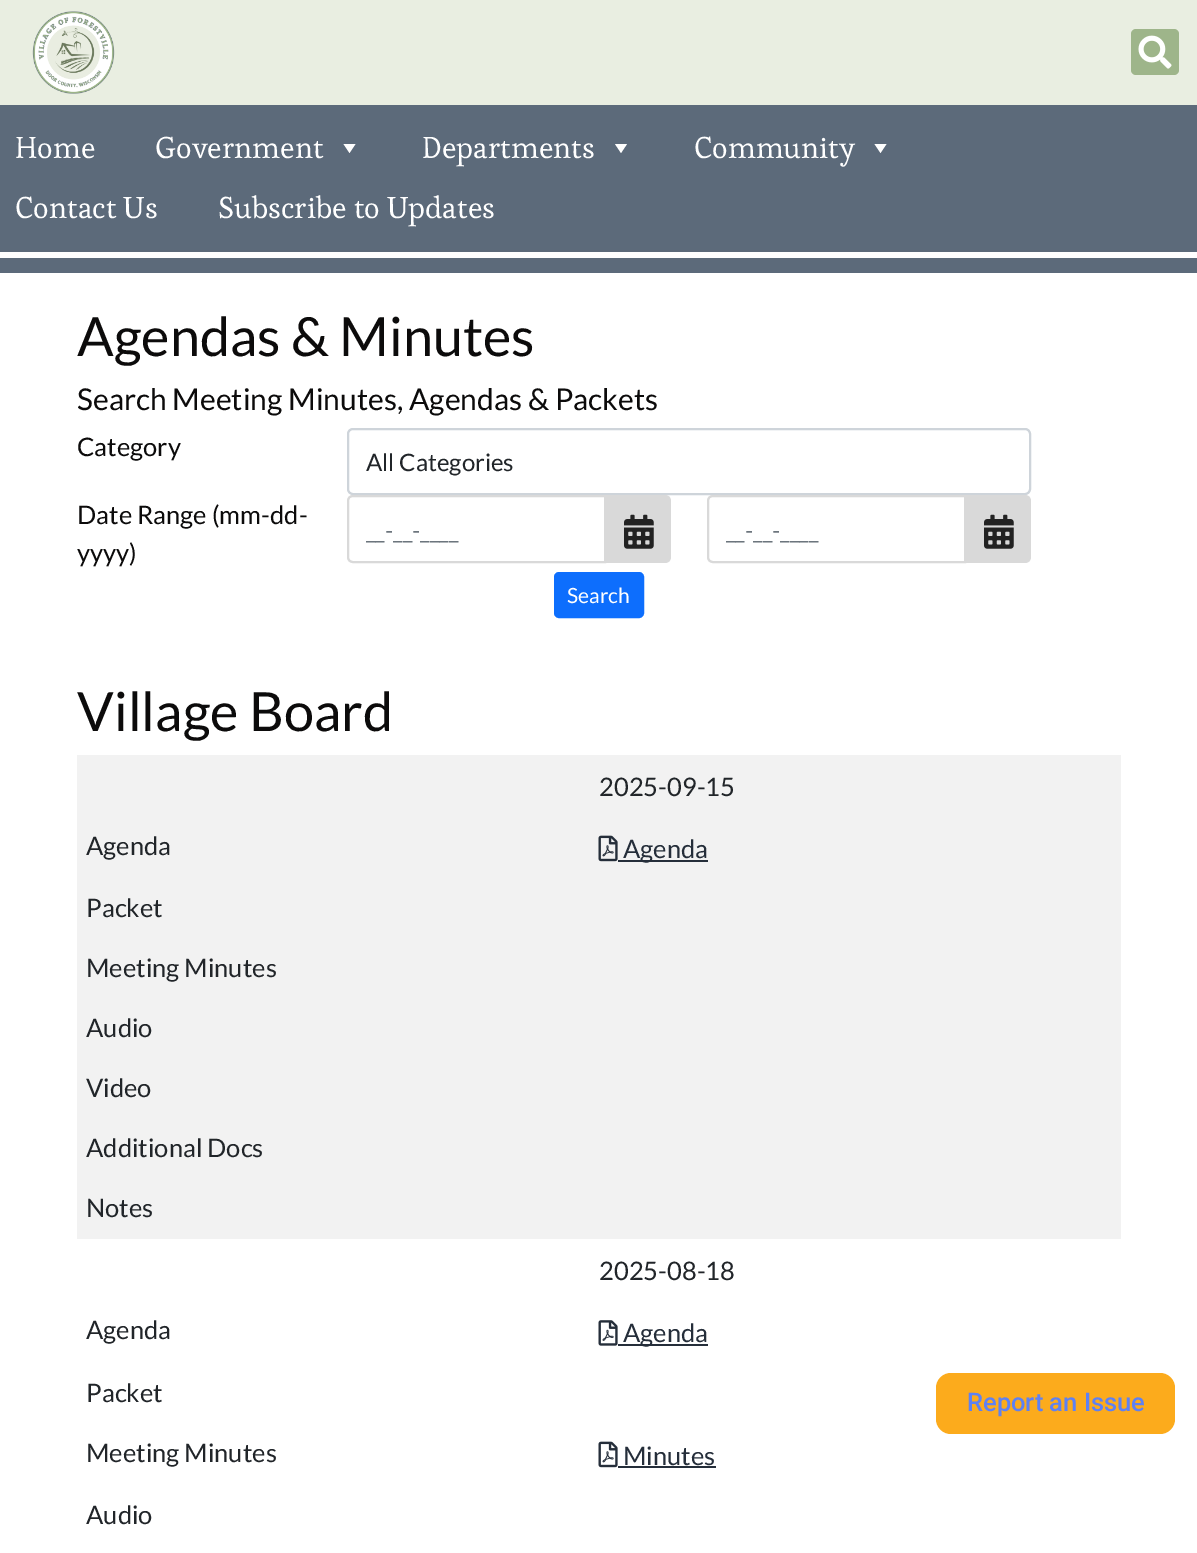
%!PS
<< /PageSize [1197 1553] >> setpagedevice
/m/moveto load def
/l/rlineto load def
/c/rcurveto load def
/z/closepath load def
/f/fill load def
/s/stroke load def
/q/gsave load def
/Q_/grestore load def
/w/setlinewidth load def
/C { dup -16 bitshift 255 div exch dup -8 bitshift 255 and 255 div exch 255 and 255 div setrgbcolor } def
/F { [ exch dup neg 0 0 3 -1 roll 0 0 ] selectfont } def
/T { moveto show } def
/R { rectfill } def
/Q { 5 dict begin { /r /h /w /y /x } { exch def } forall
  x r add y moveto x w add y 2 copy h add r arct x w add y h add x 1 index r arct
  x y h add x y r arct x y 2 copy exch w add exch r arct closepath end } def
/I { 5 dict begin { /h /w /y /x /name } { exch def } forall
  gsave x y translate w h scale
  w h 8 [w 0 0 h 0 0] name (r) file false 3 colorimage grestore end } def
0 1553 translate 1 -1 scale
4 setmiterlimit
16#FFFFFF C
0 0 1197 1553 R
16#5C6A7A C
0 105 1197 168 R
16#E9EEE1 C
0 0 1197 105 R
(1.rgb) 32 11 83 83 I
16#9EB58A C
1131 29 48 46 5 Q f
(2.rgb) 1138 35 34 34 I
/Esteban-Regular 30 F
16#FFFFFF C
(Home) 15 158 T
(Government) 155 158 T
355.5 144 m -6 9 l -6 -9 l z f
(Departments) 422 158 T
627 144 m -6 9 l -6 -9 l z f
(Community) 694 158 T
886.5 144 m -6 9 l -6 -9 l z f
(Contact Us) 15 218 T
(Subscribe to Updates) 218 218 T
0 252 1197 6 R
/Lato-Regular 54 F
16#0C0B0B C
(Agendas & Minutes) 77 356 T
/Lato-Regular 30 F
(Search Meeting Minutes, Agendas & Packets) 77 410 T
/Lato-Regular 25.5 F
(Category) 77 456 T
16#CED4DA C
2 w
348 429 682 65 5 Q s
/Lato-Regular 24 F
16#212529 C
(All Categories) 366 471 T
/Lato-Regular 25.5 F
16#0C0B0B C
(Date Range \(mm-dd-) 77 524 T
(yyyy\)) 77 562 T
16#D9D9D9 C
353 496 m 252 0 l 0 66 l -252 0 l -3 0 -5 -2 -5 -5 c 0 -56 l 0 -3 2 -5 5 -5 c z s
/Lato-Regular 24 F
16#6C757D C
(__-__-____) 366 539 T
16#D9D9D9 C
606 495 m 59 0 l 3.5 0 6 2.5 6 6 c 0 56 l 0 3.5 -2.5 6 -6 6 c -59 0 l z f
(3.rgb) 624 514 30 35 I
713 496 m 252 0 l 0 66 l -252 0 l -3 0 -5 -2 -5 -5 c 0 -56 l 0 -3 2 -5 5 -5 c z s
16#6C757D C
(__-__-____) 726 539 T
16#D9D9D9 C
966 495 m 59 0 l 3.5 0 6 2.5 6 6 c 0 56 l 0 3.5 -2.5 6 -6 6 c -59 0 l z f
(3.rgb) 984 514 30 35 I
16#0D6EFD C
555 573 88 44 4 Q q f Q_
s
/Lato-Regular 21 F
16#FFFFFF C
(Search) 567 603 T
/Lato-Regular 54 F
16#0C0B0B C
(Village Board) 77 731 T
16#F2F2F2 C
77 755 1044 484 R
/Lato-Regular 25.5 F
16#212529 C
(2025-09-15) 599 796 T
(Agenda) 86 855 T
(4.rgb) 598 835 20 27 I
16#252E3A C
618 860 90 2 R
(Agenda) 623 858 T
16#212529 C
(Packet) 86 917 T
(Meeting Minutes) 86 977 T
(Audio) 86 1037 T
(Video) 86 1097 T
(Additional Docs) 86 1157 T
(Notes) 86 1217 T
(2025-08-18) 599 1280 T
(Agenda) 86 1339 T
(5.rgb) 598 1320 20 26 I
16#252E3A C
618 1344 90 2 R
(Agenda) 623 1342 T
16#212529 C
(Packet) 86 1402 T
(Meeting Minutes) 86 1462 T
(6.rgb) 598 1441 20 27 I
16#252E3A C
(Minutes) 623 1465 T
618 1466 98 2 R
16#212529 C
(Audio) 86 1524 T
16#FCAB1C C
936 1373 239 61 15 Q f
/Roboto-Medium 25.5 F
16#5E81F4 C
(Report an Issue) 967 1411 T
showpage
